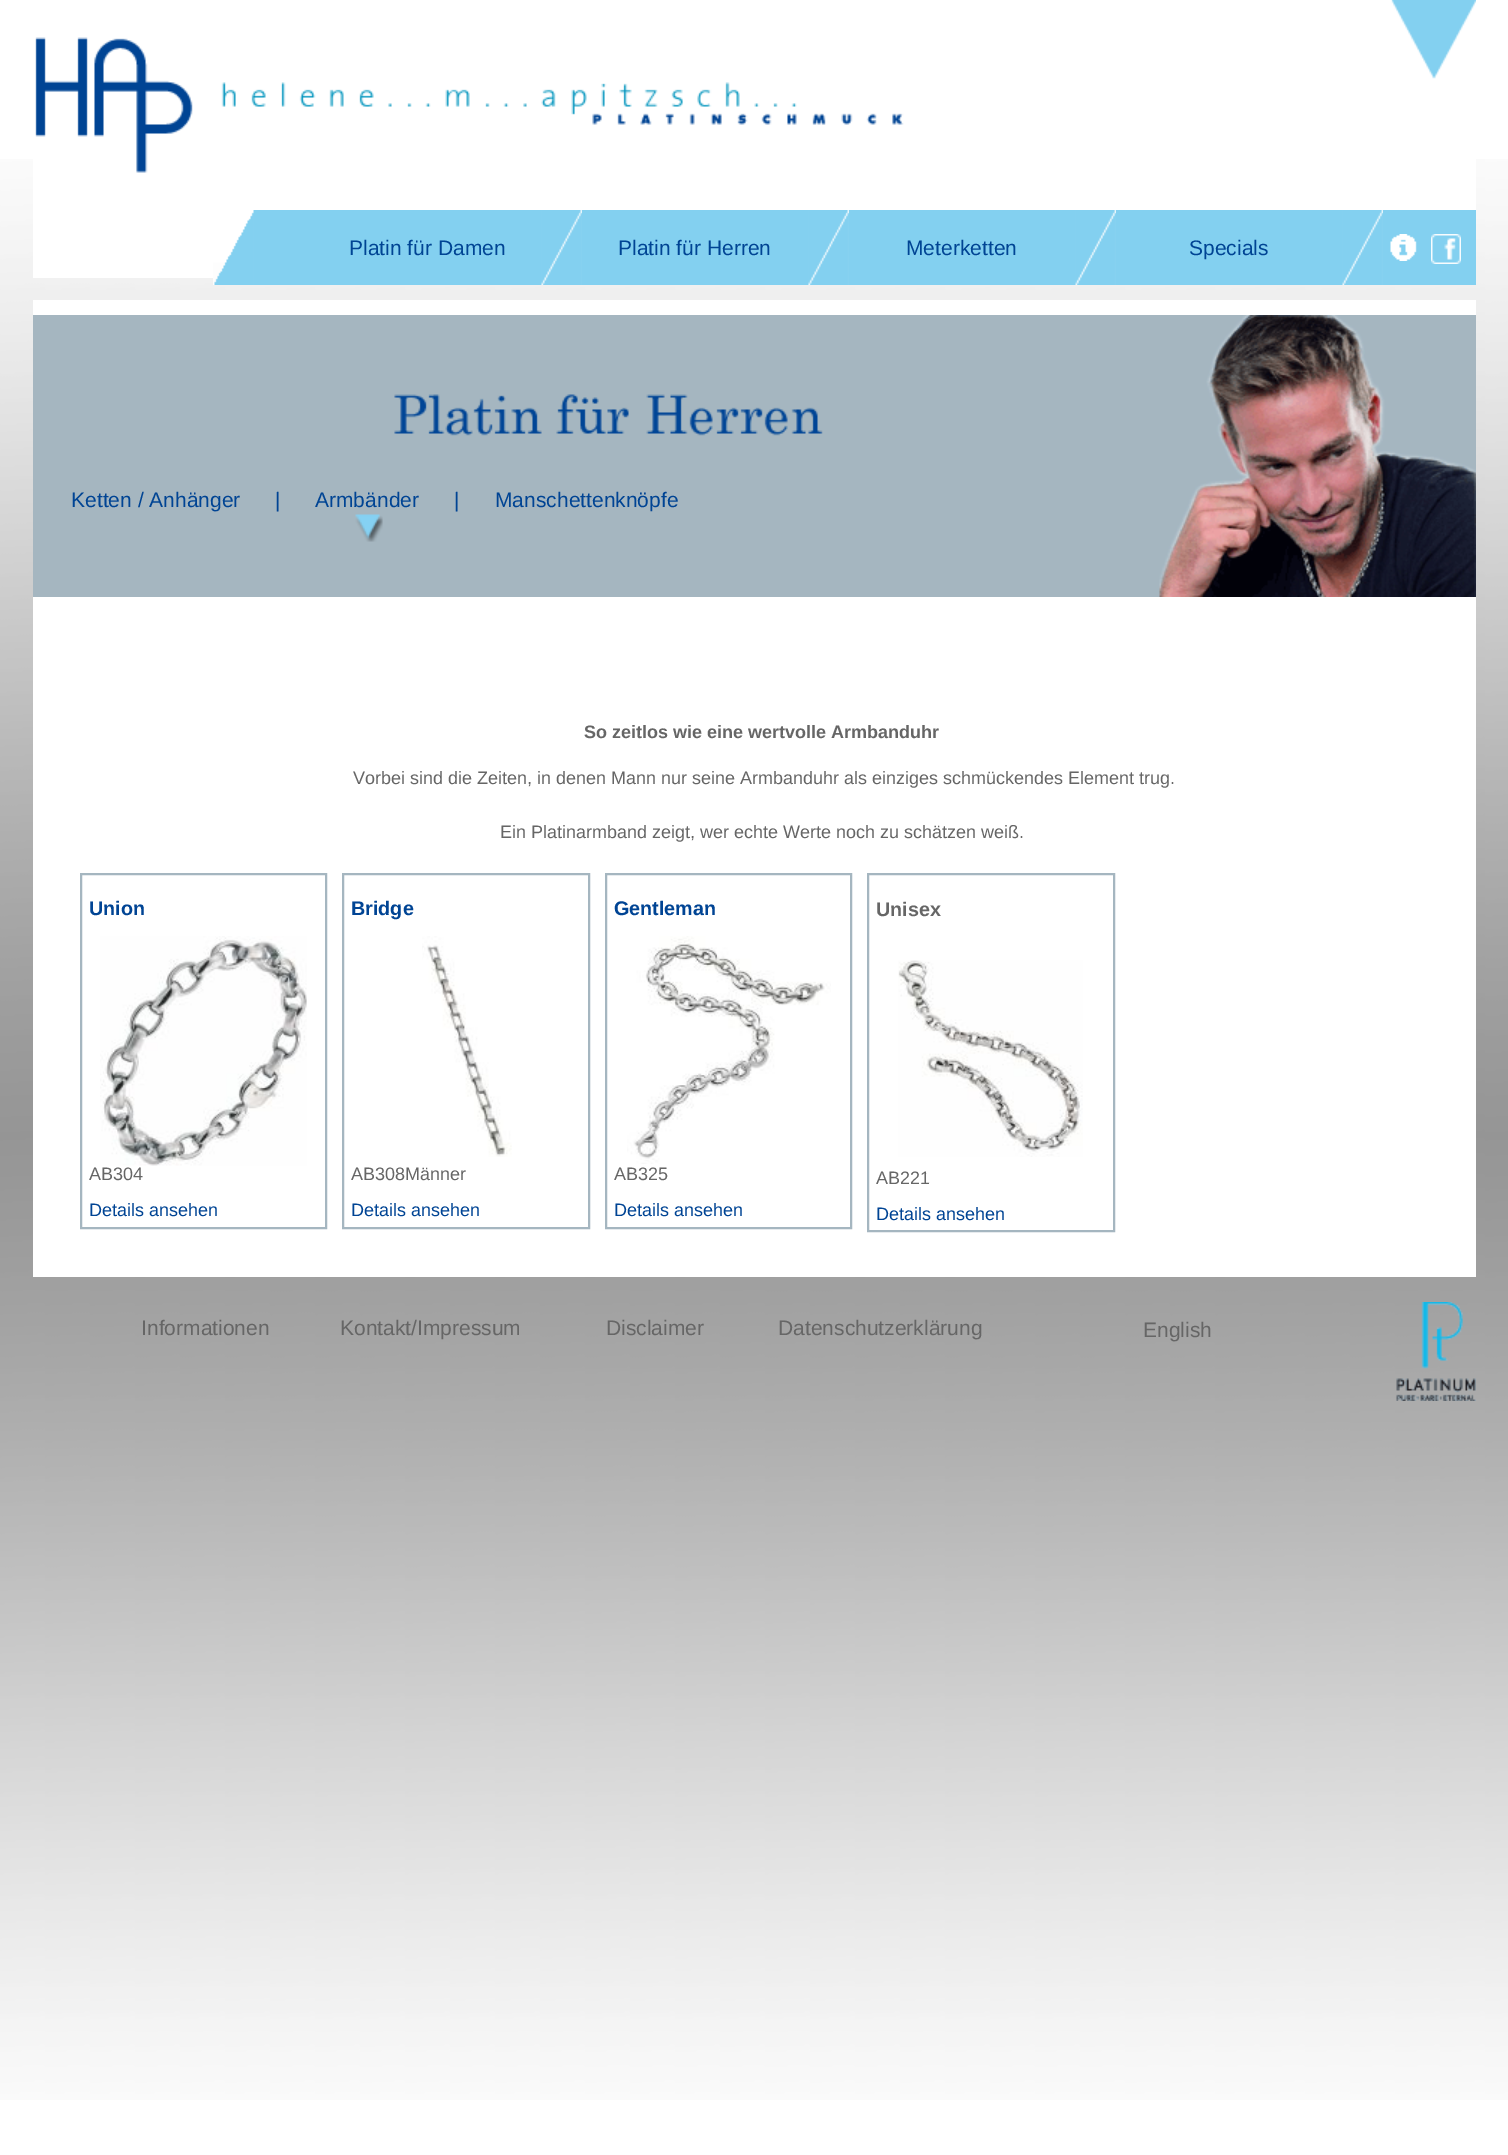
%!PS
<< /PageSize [1508 2155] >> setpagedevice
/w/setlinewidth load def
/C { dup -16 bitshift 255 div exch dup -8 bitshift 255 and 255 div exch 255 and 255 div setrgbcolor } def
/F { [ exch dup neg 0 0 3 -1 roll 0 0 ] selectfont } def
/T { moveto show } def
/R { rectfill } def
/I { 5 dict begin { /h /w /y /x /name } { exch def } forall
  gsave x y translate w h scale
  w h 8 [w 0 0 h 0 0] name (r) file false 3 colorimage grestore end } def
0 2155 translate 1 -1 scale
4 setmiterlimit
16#FFFFFF C
0 0 1508 2155 R
(1.rgb) 0 159 1508 1941 I
33 159 1443 119 R
(2.rgb) 35 0 1441 173 I
16#83D0F0 C
254 210 1222 75 R
(3.rgb) 213 210 41 75 I
/LiberationSans-Regular 21 F
16#004494 C
(Platin für Damen) 349 255 T
(4.rgb) 541 210 41 75 I
(Platin für Herren) 618 255 T
(4.rgb) 808 210 41 75 I
(Meterketten) 906 255 T
(5.rgb) 1075 210 41 75 I
(Specials) 1189 255 T
(5.rgb) 1342 210 41 75 I
(6.rgb) 1390 234 27 27 I
(7.rgb) 1431 234 30 30 I
16#FFFFFF C
33 300 1443 977 R
(8.rgb) 33 315 1443 282 I
16#004494 C
(Ketten / Anhänger) 71 507 T
(|) 275 507 T
(Armbänder) 315 507 T
(|) 454 507 T
(Manschettenknöpfe) 495 507 T
(9.rgb) 355 514 28 28 I
/LiberationSans-Bold 18 F
16#666666 C
(So zeitlos wie eine wertvolle Armbanduhr) 584 738 T
/LiberationSans-Regular 18 F
(Vorbei sind die Zeiten, in denen Mann nur seine Armbanduhr als einziges schmückendes Element trug.) 353 784 T
(Ein Platinarmband zeigt, wer echte Werte noch zu schätzen weiß.) 500 838 T
16#A5B6C0 C
2 w
81 874 245 354 rectstroke
/LiberationSans-Bold 19.75 F
16#004494 C
(Union) 89 915 T
(10.rgb) 100 936 207 230 I
/LiberationSans-Regular 18 F
16#666666 C
(AB304) 89 1180 T
16#004494 C
(Details ansehen) 89 1216 T
16#A5B6C0 C
343 874 246 354 rectstroke
/LiberationSans-Bold 19.75 F
16#004494 C
(Bridge) 351 915 T
(11.rgb) 422 936 90 221 I
/LiberationSans-Regular 18 F
16#666666 C
(AB308Männer) 351 1180 T
16#004494 C
(Details ansehen) 351 1216 T
16#A5B6C0 C
606 874 245 354 rectstroke
/LiberationSans-Bold 19.75 F
16#004494 C
(Gentleman) 614 915 T
(12.rgb) 627 936 204 228 I
/LiberationSans-Regular 18 F
16#666666 C
(AB325) 614 1180 T
16#004494 C
(Details ansehen) 614 1216 T
16#A5B6C0 C
868 874 246 357 rectstroke
/LiberationSans-Bold 19.75 F
16#666666 C
(Unisex) 876 916 T
(13.rgb) 898 960 185 197 I
/LiberationSans-Regular 18 F
(AB221) 876 1184 T
16#004494 C
(Details ansehen) 876 1220 T
(14.rgb) 1396 1302 80 99 I
/LiberationSans-Regular 21 F
16#666666 C
(Informationen) 141 1335 T
(Kontakt/Impressum) 340 1335 T
(Disclaimer) 606 1335 T
(Datenschutzerklärung) 778 1335 T
(English) 1143 1337 T
showpage
